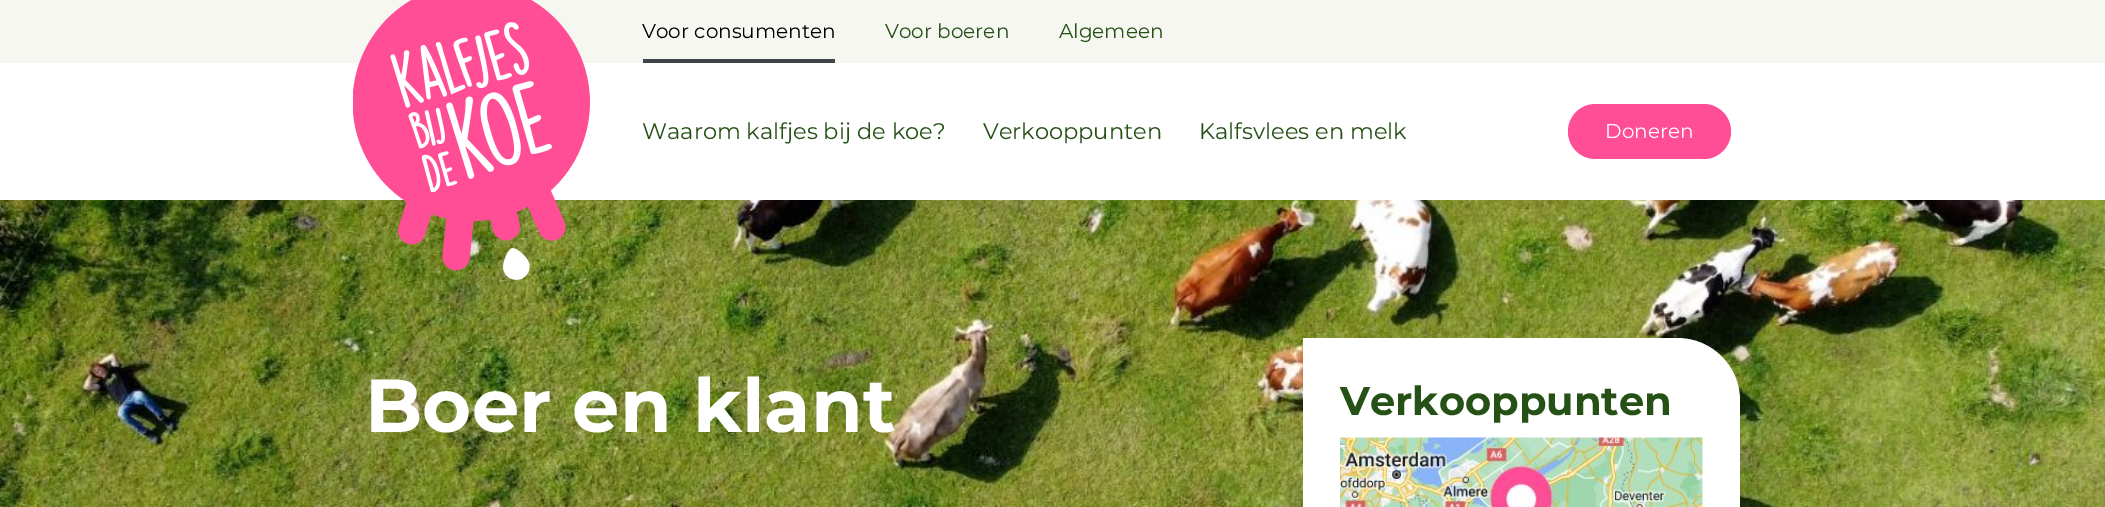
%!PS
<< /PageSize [2105 507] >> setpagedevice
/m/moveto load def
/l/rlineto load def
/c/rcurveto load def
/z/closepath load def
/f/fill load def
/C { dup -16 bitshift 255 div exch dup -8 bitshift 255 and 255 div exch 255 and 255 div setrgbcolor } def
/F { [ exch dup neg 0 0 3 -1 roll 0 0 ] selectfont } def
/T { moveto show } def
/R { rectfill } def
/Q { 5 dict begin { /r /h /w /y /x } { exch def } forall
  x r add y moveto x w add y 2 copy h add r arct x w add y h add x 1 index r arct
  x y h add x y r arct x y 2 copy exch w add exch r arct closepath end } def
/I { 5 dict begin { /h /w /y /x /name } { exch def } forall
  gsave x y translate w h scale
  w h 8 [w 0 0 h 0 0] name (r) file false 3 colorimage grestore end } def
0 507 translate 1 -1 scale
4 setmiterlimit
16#F6F7F1 C
0 0 2105 507 R
/Montserrat-Regular 20 F
16#000000 C
(Voor consumenten) 642 38 T
16#3F444B C
643 59 192 4 R
16#255016 C
(Voor boeren) 885 38 T
(Algemeen) 1059 38 T
16#FFFFFF C
0 63 2105 137 R
(2.rgb) 0 200 2105 307 I
(1.rgb) 353 0 237 280 I
/Montserrat-Regular 22.5 F
16#255016 C
(Waarom kalfjes bij de koe?) 642 139 T
(Verkooppunten) 983 139 T
(Kalfsvlees en melk) 1199 139 T
16#FF4E95 C
1568 104 163 55 27.5 Q f
/Montserrat-Regular 20 F
16#FFFFFF C
(Doneren) 1605 138 T
/Montserrat-Bold 75 F
(Boer en klant) 365 432 T
1303 338 m 374 0 l 35 0 63 28 63 63 c 0 106 l 0 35 -28 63 -63 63 c -311 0 l -35 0 -63 -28 -63 -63 c z f
/Montserrat-Bold 40 F
16#255016 C
(Verkooppunten) 1340 415 T
(3.rgb) 1340 437 363 70 I
showpage
